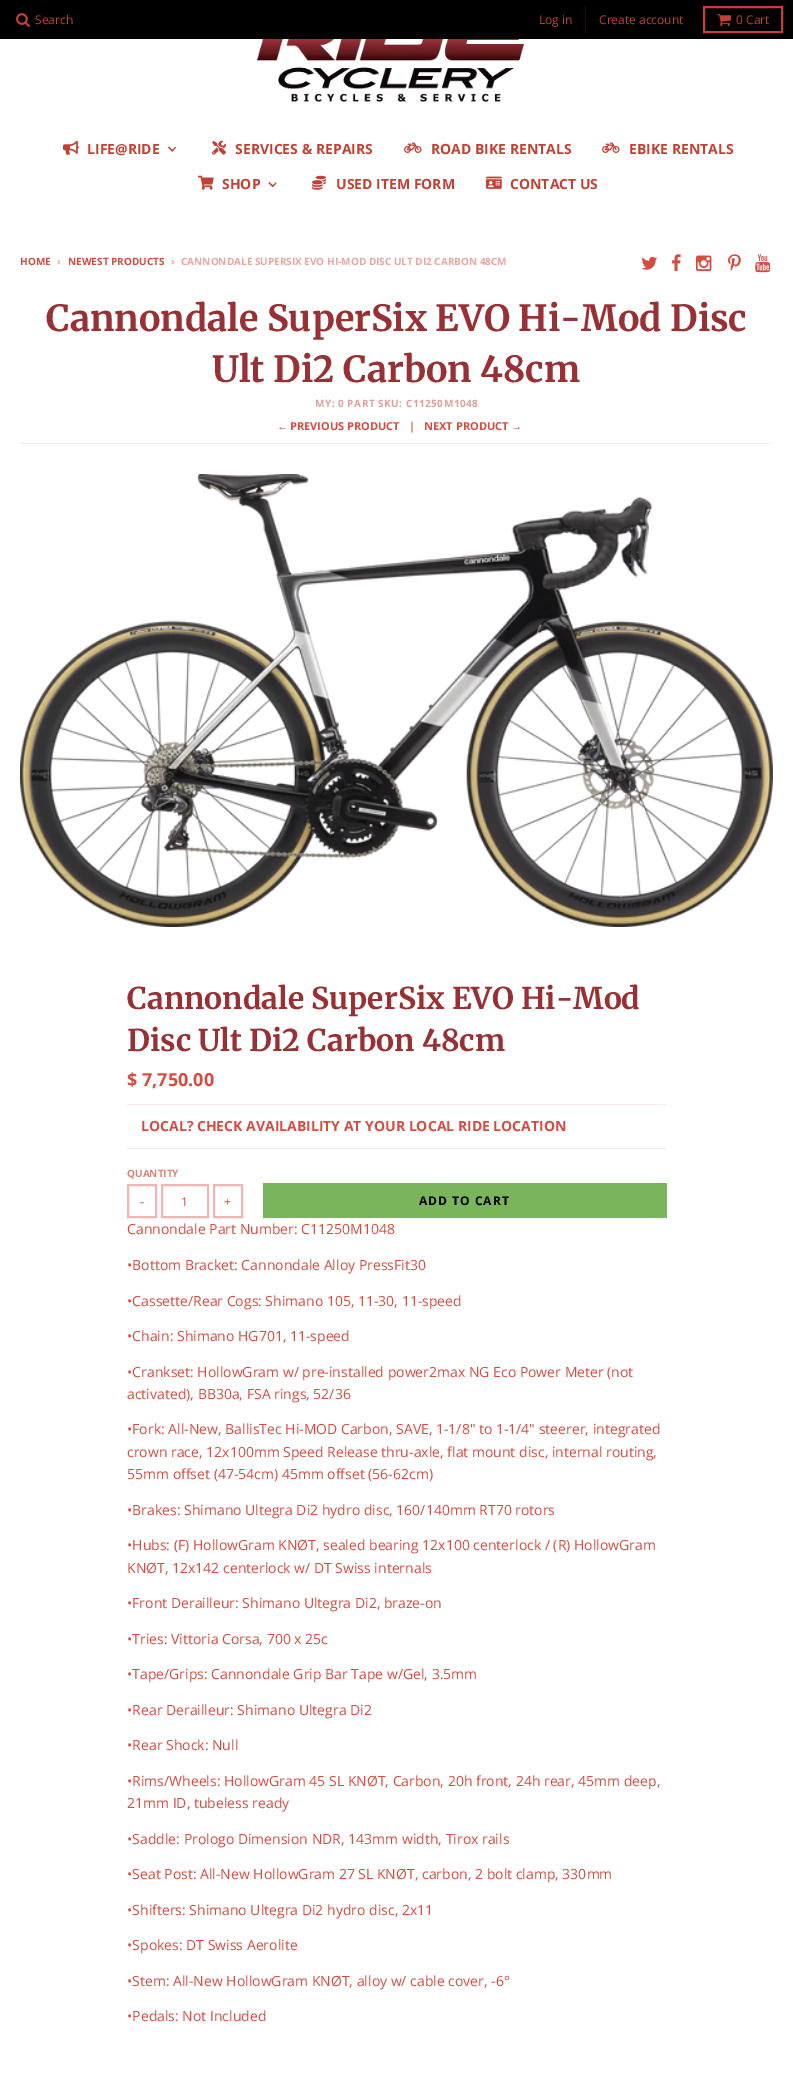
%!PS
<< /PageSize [793 2077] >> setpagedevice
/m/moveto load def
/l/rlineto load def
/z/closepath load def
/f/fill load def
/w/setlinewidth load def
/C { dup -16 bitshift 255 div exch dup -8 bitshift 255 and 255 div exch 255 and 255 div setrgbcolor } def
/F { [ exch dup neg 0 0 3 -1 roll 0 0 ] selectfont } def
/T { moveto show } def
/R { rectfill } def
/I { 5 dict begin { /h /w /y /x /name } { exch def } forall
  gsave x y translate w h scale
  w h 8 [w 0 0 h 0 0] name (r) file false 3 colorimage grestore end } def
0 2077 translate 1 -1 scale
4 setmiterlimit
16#FFFFFF C
0 0 793 2077 R
16#000000 C
0 0 793 39 R
(1.rgb) 16 13 14 15 I
/OpenSans-Regular 12 F
16#C24135 C
(Search) 35 24 T
16#260D0A C
585 6 1 27 R
16#C24135 C
(Log in) 539 24 T
(Create account) 599 24 T
2 w
704 7 78 25 rectstroke
(2.rgb) 717 14 14 12 I
(0 Cart) 736 24 T
(3.rgb) 257 39 279 63 I
(4.rgb) 63 140 16 15 I
/OpenSans-Bold 14 F
(LIFE@RIDE) 87 154 T
175.5 147 m .5 .5 l -3.5 4 l -1 -1 l z f
169 146.5 m 4 4 l -1 1 l -4 -4 l z f
(5.rgb) 212 140 14 15 I
(SERVICES & REPAIRS) 235 154 T
(6.rgb) 404 142 18 11 I
(ROAD BIKE RENTALS) 431 154 T
(6.rgb) 602 142 18 11 I
(EBIKE RENTALS) 629 154 T
(7.rgb) 198 175 16 15 I
(SHOP) 222 189 T
276 182.5 m .5 .5 l -3.5 4 l -1 -1 l z f
269.5 182 m 4 4 l -1 1 l -4 -4 l z f
(8.rgb) 312 175 14 15 I
(USED ITEM FORM) 336 189 T
(9.rgb) 486 176 16 13 I
(CONTACT US) 510 189 T
/OpenSans-Bold 10 F
16#D54D41 C
(HOME) 20 265 T
16#EAA6A0 C
(›) 57 265 T
16#D54D41 C
(NEWEST PRODUCTS) 68 265 T
16#EAA6A0 C
(›) 171 265 T
(CANNONDALE SUPERSIX EVO HI-MOD DISC ULT DI2 CARBON 48CM) 181 265 T
(10.rgb) 641 256 17 14 I
(11.rgb) 671 254 10 17 I
(12.rgb) 696 255 16 16 I
(13.rgb) 728 254 13 17 I
(14.rgb) 755 254 16 19 I
16#F4EAEA C
20 443 753 1 R
/Merriweather-Bold 36 F
16#983034 C
(Cannondale SuperSix EVO Hi-Mod Disc) 46 331 T
(Ult Di2 Carbon 48cm) 212 382 T
/OpenSans-Bold 10 F
16#E0A09A C
315 407 m .5 0 (MY: 0 PART SKU: C11250M1048) ashow
/LiberationSans-Bold 11 F
16#D54D41 C
(←) 277 430 T
/OpenSans-Bold 11 F
(PREVIOUS PRODUCT) 290 430 T
(|) 409 430 T
(NEXT PRODUCT) 424 430 T
/LiberationSans-Bold 11 F
(→) 511 430 T
(15.rgb) 20 474 753 453 I
/Merriweather-Bold 30 F
16#983034 C
(Cannondale SuperSix EVO Hi-Mod) 127 1009 T
(Disc Ult Di2 Carbon 48cm) 127 1051 T
16#F4EAEA C
127 1104 540 1 R
/OpenSans-Bold 18 F
16#D54D41 C
($ 7,750.00) 127 1086 T
16#F0EAEA C
127 1148 540 1 R
/OpenSans-Bold 14 F
16#D54D41 C
(LOCAL? CHECK AVAILABILITY AT YOUR LOCAL RIDE LOCATION) 141 1131 T
/OpenSans-Bold 10 F
16#E1827A C
(QUANTITY) 127 1177 T
16#EEB7B3 C
128 1185 28 32 rectstroke
/OpenSans-Regular 12 F
16#D54D41 C
(-) 140 1206 T
16#EEB7B3 C
162 1185 46 32 rectstroke
16#D54D41 C
(1) 181 1206 T
16#EEB7B3 C
214 1185 28 32 rectstroke
16#D54D41 C
(+) 224 1206 T
16#7AB55C C
263 1183 404 35 R
/OpenSans-Bold 12 F
16#000000 C
419 1205 m 1 0 (ADD TO CART) ashow
/OpenSans-Regular 14 F
16#D54D41 C
(Cannondale Part Number: C11250M1048) 127 1234 T
(•Bottom Bracket: Cannondale Alloy PressFit30) 127 1270 T
(•Cassette/Rear Cogs: Shimano 105, 11-30, 11-speed) 127 1306 T
(•Chain: Shimano HG701, 11-speed) 127 1341 T
(•Crankset: HollowGram w/ pre-installed power2max NG Eco Power Meter \(not) 127 1377 T
(activated\), BB30a, FSA rings, 52/36) 127 1399 T
(•Fork: All-New, BallisTec Hi-MOD Carbon, SAVE, 1-1/8" to 1-1/4" steerer, integrated) 127 1434 T
(crown race, 12x100mm Speed Release thru-axle, flat mount disc, internal routing,) 127 1457 T
(55mm offset \(47-54cm\) 45mm offset \(56-62cm\)) 127 1479 T
(•Brakes: Shimano Ultegra Di2 hydro disc, 160/140mm RT70 rotors) 127 1515 T
(•Hubs: \(F\) HollowGram KNØT, sealed bearing 12x100 centerlock / \(R\) HollowGram) 127 1550 T
(KNØT, 12x142 centerlock w/ DT Swiss internals) 127 1573 T
(•Front Derailleur: Shimano Ultegra Di2, braze-on) 127 1608 T
(•Tries: Vittoria Corsa, 700 x 25c) 127 1644 T
(•Tape/Grips: Cannondale Grip Bar Tape w/Gel, 3.5mm) 127 1679 T
(•Rear Derailleur: Shimano Ultegra Di2) 127 1715 T
(•Rear Shock: Null) 127 1750 T
(•Rims/Wheels: HollowGram 45 SL KNØT, Carbon, 20h front, 24h rear, 45mm deep,) 127 1786 T
(21mm ID, tubeless ready) 127 1808 T
(•Saddle: Prologo Dimension NDR, 143mm width, Tirox rails) 127 1844 T
(•Seat Post: All-New HollowGram 27 SL KNØT, carbon, 2 bolt clamp, 330mm) 127 1879 T
(•Shifters: Shimano Ultegra Di2 hydro disc, 2x11) 127 1915 T
(•Spokes: DT Swiss Aerolite) 127 1950 T
(•Stem: All-New HollowGram KNØT, alloy w/ cable cover, -6°) 127 1986 T
(•Pedals: Not Included) 127 2021 T
showpage
